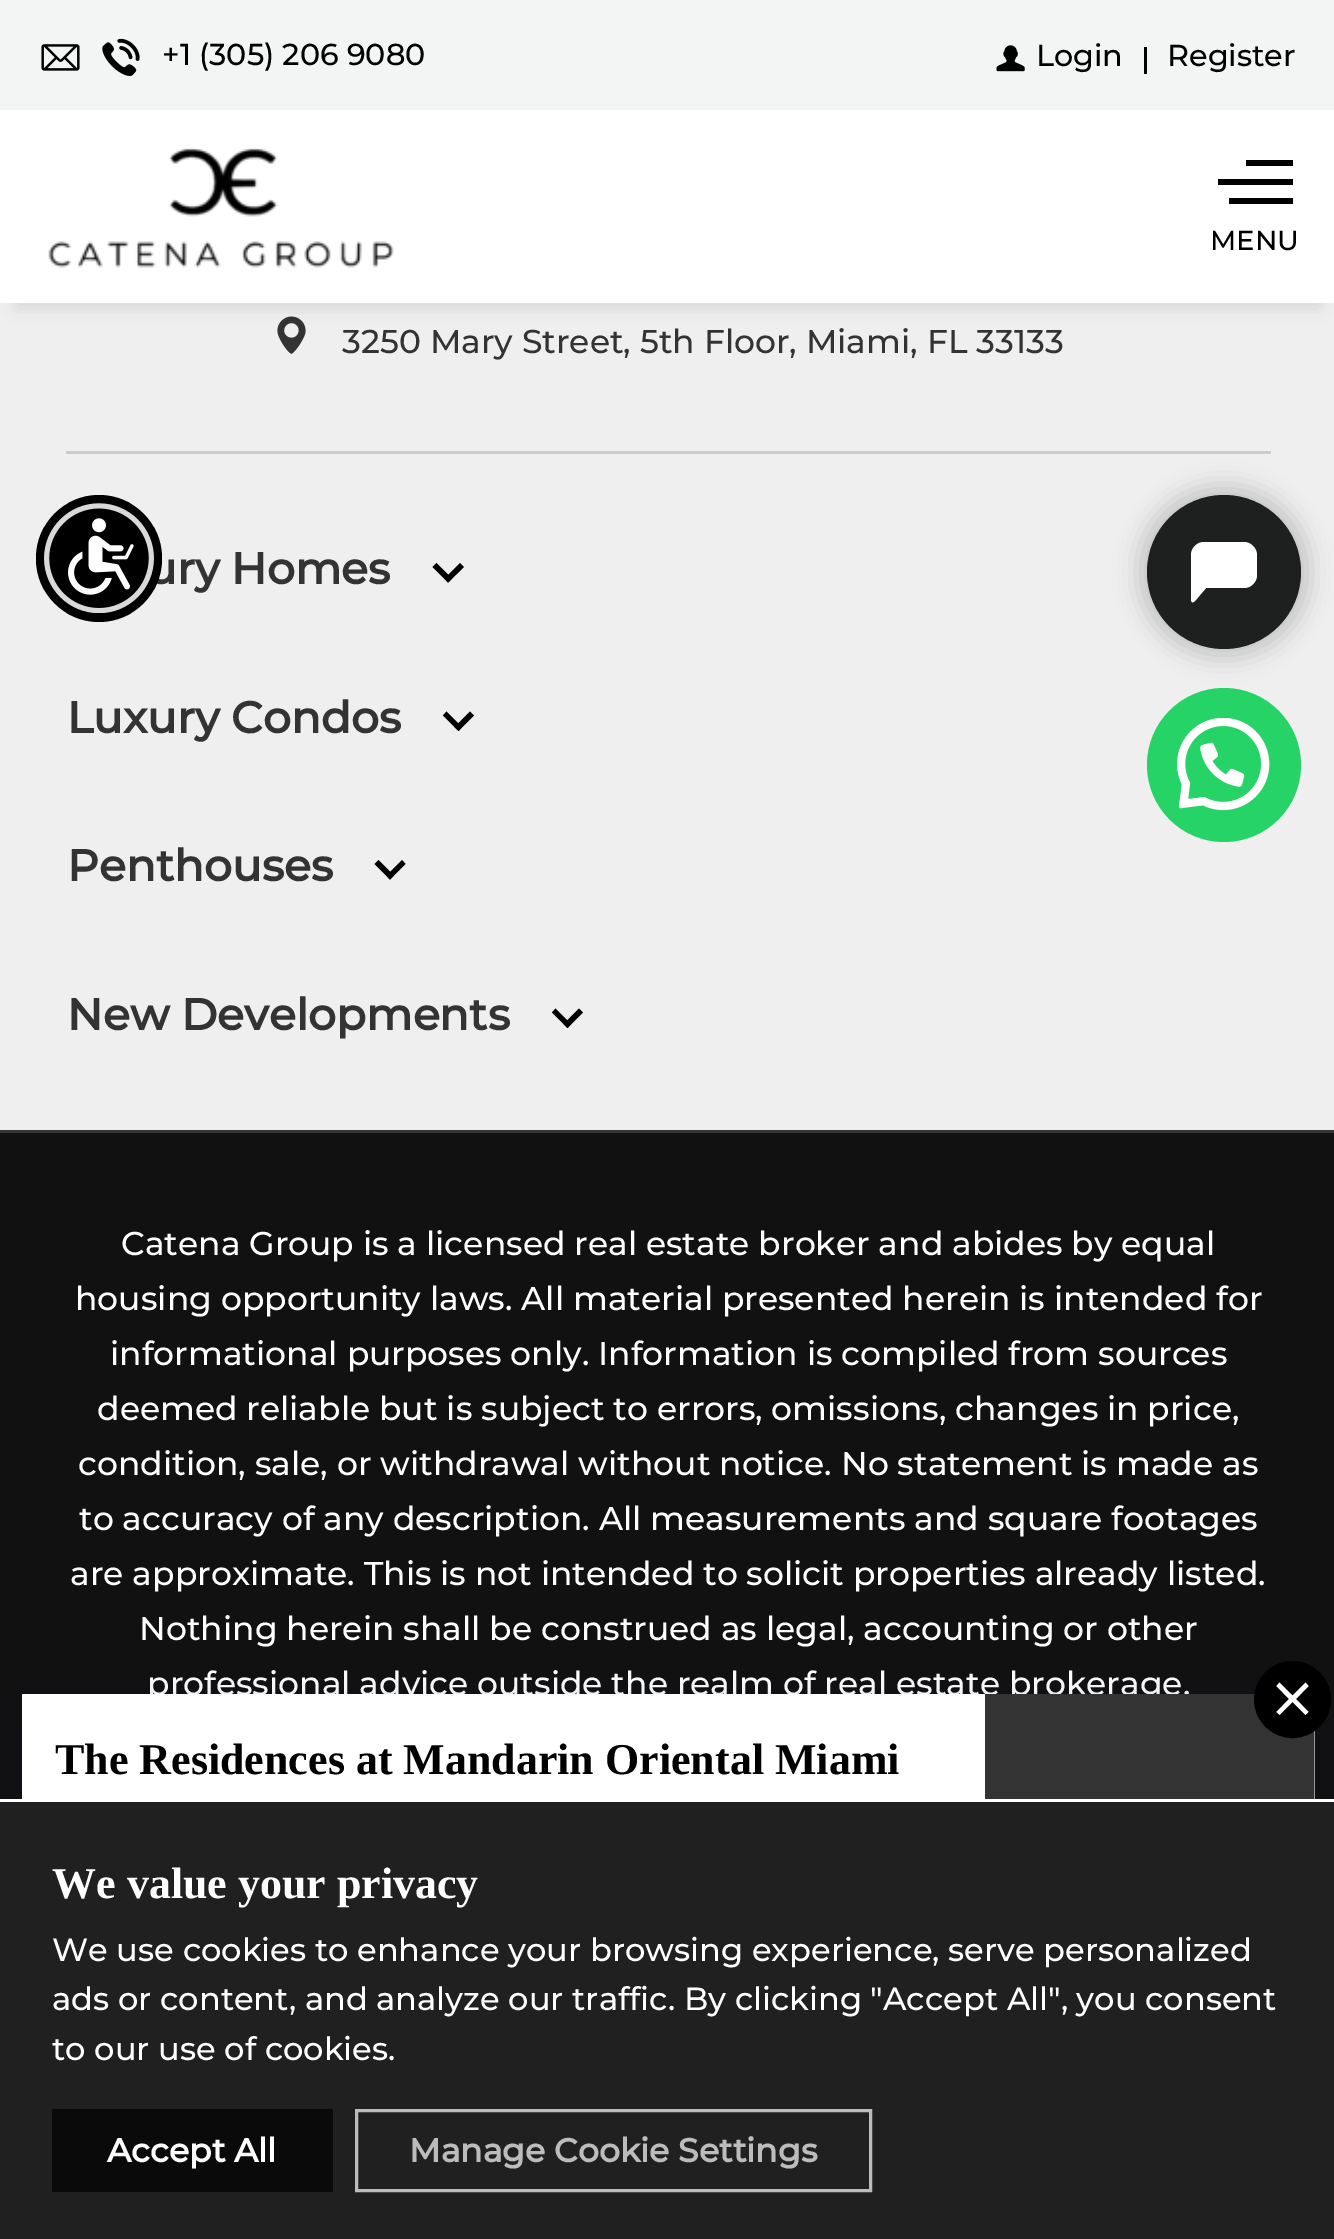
%!PS
<< /PageSize [1334 2239] /PageUsesTransparency true >> setpagedevice
/m/moveto load def
/l/rlineto load def
/c/rcurveto load def
/z/closepath load def
/f/fill load def
/s/stroke load def
/q/gsave load def
/Q_/grestore load def
/w/setlinewidth load def
/C { dup -16 bitshift 255 div exch dup -8 bitshift 255 and 255 div exch 255 and 255 div setrgbcolor } def
/F { [ exch dup neg 0 0 3 -1 roll 0 0 ] selectfont } def
/T { moveto show } def
/R { rectfill } def
/A { dup .setfillconstantalpha .setstrokeconstantalpha } def
/O { newpath 0 360 arc closepath } def
/Q { 5 dict begin { /r /h /w /y /x } { exch def } forall
  x r add y moveto x w add y 2 copy h add r arct x w add y h add x 1 index r arct
  x y h add x y r arct x y 2 copy exch w add exch r arct closepath end } def
/S { 12 dict begin { /a /b /q /h /w /y /x } { exch def } forall gsave /was 0 def
  9 -2 -9 { dup b mul 4 div /e exch def 1 sub .425 mul 2.718 exch exp 1 add a .99 .min exch div /now exch def
    1 1 now sub 1 was sub div sub A /was now def
    w h .min e 2 mul add 0 gt { x e sub y e sub w e 2 mul add h e 2 mul add
      q e add b .6 mul add w h .min 2 div e add .min 0 .max Q fill } if } for grestore end } def
/I { 5 dict begin { /h /w /y /x /name } { exch def } forall
  gsave x y translate w h scale
  w h 8 [w 0 0 h 0 0] name (r) file false 3 colorimage grestore end } def
0 .pushpdf14devicefilter
0 2239 translate 1 -1 scale
4 setmiterlimit
16#EFEFEF C
0 0 1334 2239 R
(5.rgb) 277 316 29 38 I
16#000000 C
17 39 1303 269 0 8 .1 S
16#FFFFFF C
0 110 1334 193 R
16#F3F4F4 C
0 0 1334 110 R
(1.rgb) 41 44 39 27 I
(2.rgb) 102 38 38 38 I
/Montserrat-Thin 30.25 F
16#000000 C
(+1 \(305\) 206 9080) 162 65 T
(3.rgb) 996 45 29 27 I
(Login) 1036 66 T
1144 47 3 27 R
(Register) 1167 66 T
(4.rgb) 48 148 346 120 I
1246 160 47 6 R
1218 179 75 6 R
1229 198 64 6 R
/Montserrat-Thin 27.5 F
(MENU) 1210 250 T
16#CCCCCC C
66 451 1205 3 R
/Montserrat-Thin 33 F
16#333333 C
(3250 Mary Street, 5th Floor, Miami, FL 33133) 342 353 T
/Montserrat-Bold 44 F
(ury Homes) 147 584 T
16#000000 C
460 563 m 4 4 l -16 15.5 l -3.5 -4 l z f
436.5 563 m 15.5 15.5 l -4 4 l -15.5 -15.5 l z f
16#333333 C
(Luxury Condos) 67 733 T
16#000000 C
470 711.5 m 4 4 l -15.5 15.5 l -4 -4 l z f
446.5 711.5 m 15.5 15.5 l -3.5 4 l -15.5 -15.5 l z f
16#333333 C
(Penthouses) 67 881 T
16#000000 C
402 860 m 3.5 4 l -15.5 15.5 l -3.5 -4 l z f
378.5 860 m 15.5 15.5 l -4 4 l -15.5 -15.5 l z f
16#333333 C
(New Developments) 67 1030 T
16#000000 C
579 1008.5 m 4 4 l -15.5 15.5 l -4 -4 l z f
555.5 1008.5 m 15.5 15.5 l -3.5 4 l -15.5 -15.5 l z f
16#111111 C
0 1133 1334 666 R
16#353535 C
0 1130 1334 3 R
/Montserrat-Thin 33 F
16#FFFFFF C
(Catena Group is a licensed real estate broker and abides by equal) 121 1255 T
(housing opportunity laws. All material presented herein is intended for) 75 1310 T
(informational purposes only. Information is compiled from sources) 110 1365 T
(deemed reliable but is subject to errors, omissions, changes in price,) 97 1420 T
(condition, sale, or withdrawal without notice. No statement is made as) 78 1475 T
(to accuracy of any description. All measurements and square footages) 79 1530 T
(are approximate. This is not intended to solicit properties already listed.) 70 1585 T
(Nothing herein shall be construed as legal, accounting or other) 139 1640 T
(professional advice outside the realm of real estate brokerage.) 147 1695 T
16#000000 C
36 495 126 127 63 Q f
(6.rgb) 44 503 110 110 I
1136 484 176 176 88 11 .16 S
16#1E2020 C
1224 572 77 O f
16#FFFFFF C
1206 588 m -11 13 l -2 2 -4 2 -4 -2 c 0 -44 l 0 -7 6 -13 13 -13 c 40 0 l 3 0 6 1 9 4 c 2 2 4 5 4 9 c 0 20 l 0 7 -6 13 -13 13 c z f
16#25D366 C
1224 765 77 O f
(7.rgb) 1177 718 93 93 I
16#1D1133 C
30 1716 1276 509 3 14 .12 S
16#09204D C
17 1697 1303 536 17 22 .12 S
16#FFFFFF C
22 1694 1293 105 R
(8.rgb) 985 1694 330 105 I
16#000000 C
1292.5 1699.5 37 O q f Q_
3 w
s
16#FFFFFF C
1308.5 1686 m -12.5 13 l 12.5 13 l -3 3 l -13 -13 l -13 13 l -3 -3 l 12.5 -13 l -12.5 -13 l 3 -3.5 l 13 13 l 13 -13 l z f
/LiberationSerif-Bold 44 F
16#000000 C
(The Residences at Mandarin Oriental Miami) 55 1774 T
16#202020 C
0 1802 1334 437 R
16#FFFFFF C
0 1799 1334 3 R
(We value your privacy) 52 1898 T
/Montserrat-Thin 32.1 F
(We use cookies to enhance your browsing experience, serve personalized) 52 1961 T
(ads or content, and analyze our traffic. By clicking "Accept All", you consent) 52 2010 T
(to our use of cookies.) 52 2060 T
16#0A0A0A C
52 2109 281 83 R
/Montserrat-Bold 33 F
16#FFFFFF C
(Accept All) 107 2162 T
16#BCBCBC C
356.5 2110.5 514 80 rectstroke
(Manage Cookie Settings) 409 2162 T
.poppdf14devicefilter showpage
